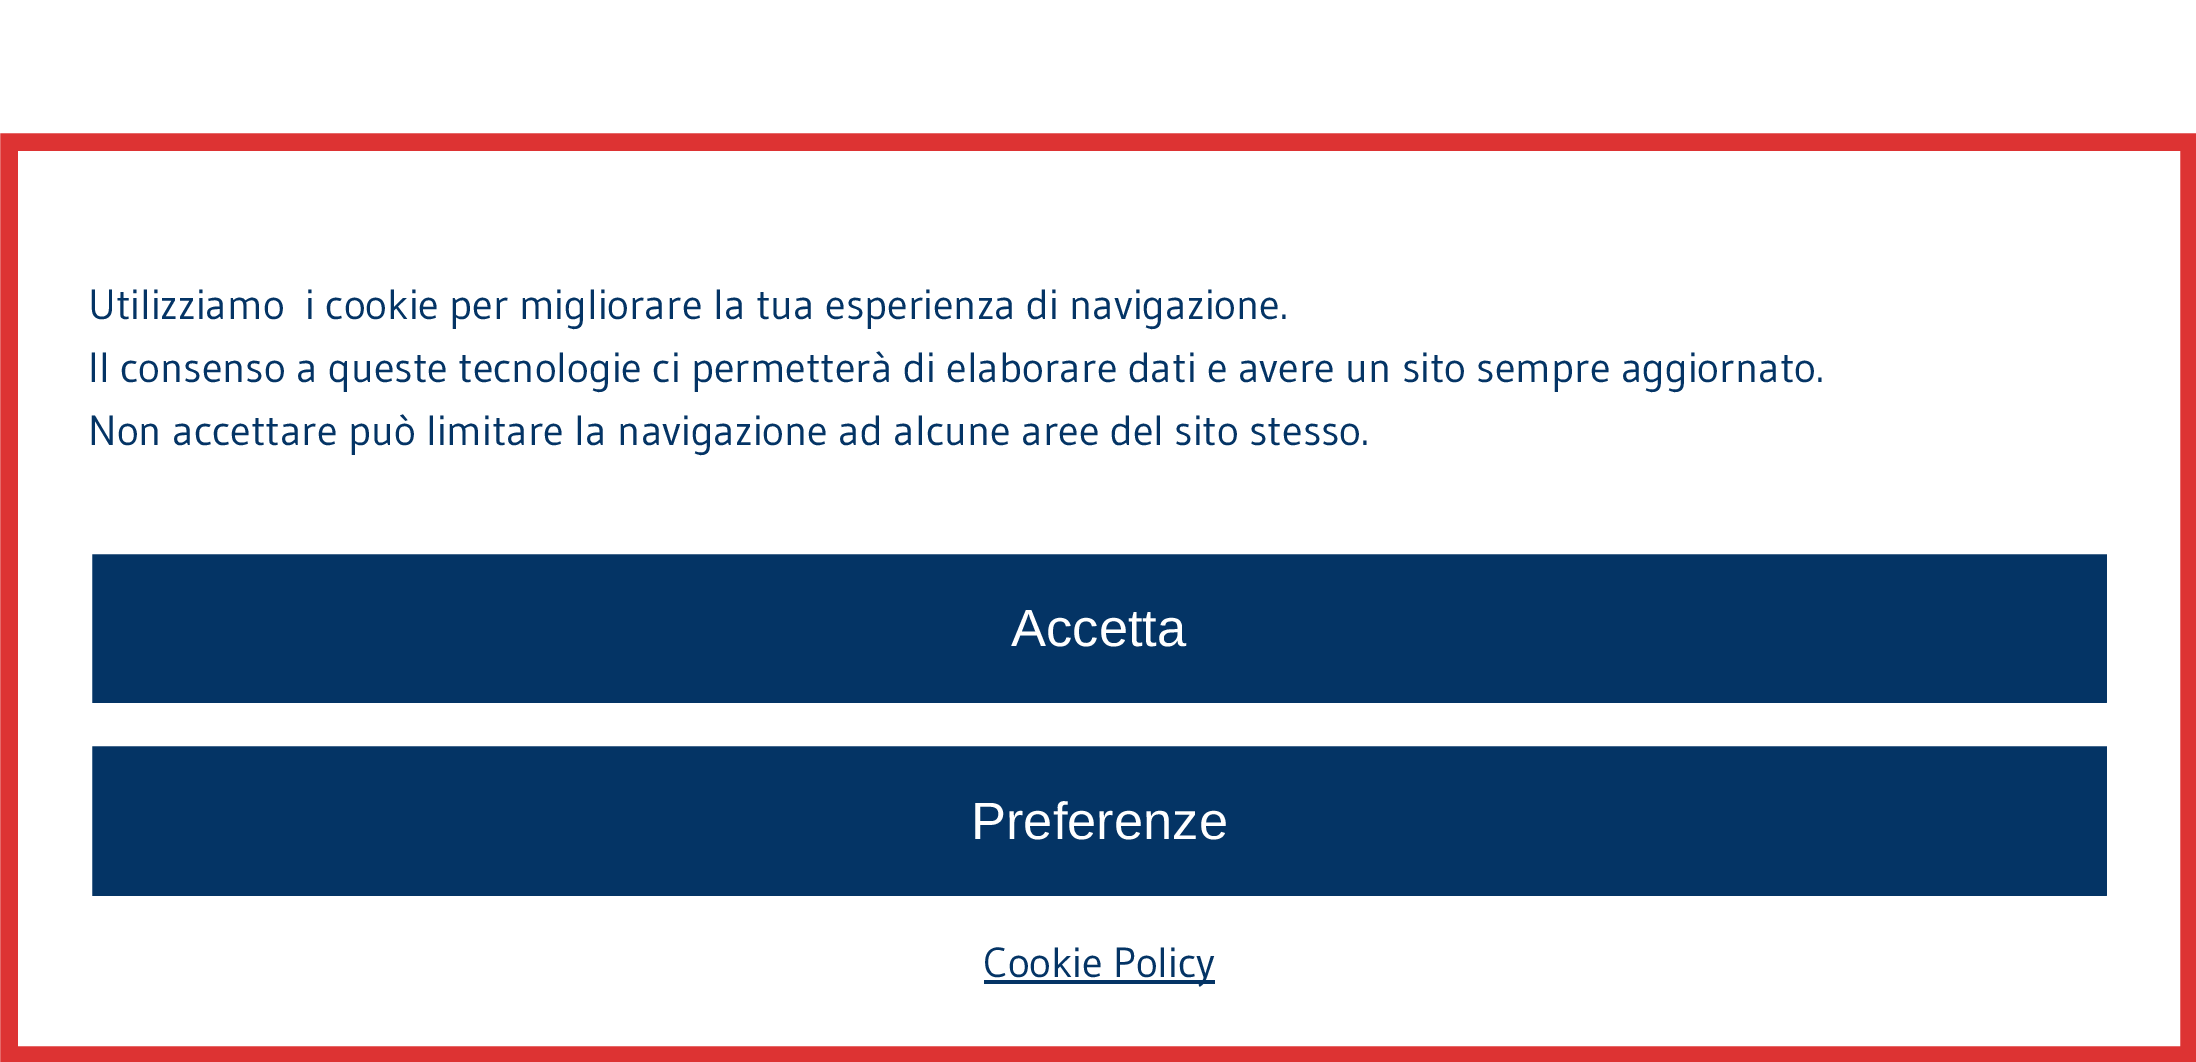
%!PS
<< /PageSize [2196 1062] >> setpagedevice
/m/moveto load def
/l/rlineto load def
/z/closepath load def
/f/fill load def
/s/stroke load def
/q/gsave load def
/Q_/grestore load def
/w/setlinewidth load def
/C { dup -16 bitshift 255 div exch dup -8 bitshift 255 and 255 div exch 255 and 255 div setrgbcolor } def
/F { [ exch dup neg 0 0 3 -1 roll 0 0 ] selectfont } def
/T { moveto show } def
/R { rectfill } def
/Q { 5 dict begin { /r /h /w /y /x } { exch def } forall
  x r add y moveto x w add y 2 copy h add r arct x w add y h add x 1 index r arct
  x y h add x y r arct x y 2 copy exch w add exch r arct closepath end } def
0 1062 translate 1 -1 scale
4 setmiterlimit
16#FFFFFF C
0 0 2196 1062 R
16#DD3333 C
17.5 w
9 142 m 2180 0 l 0 913 l -2180 0 l z s
/Gudea-Regular 42 F
16#043465 C
(Utilizziamo  i cookie per migliorare la tua esperienza di navigazione.) 88 319 T
(Il consenso a queste tecnologie ci permetterà di elaborare dati e avere un sito sempre aggiornato.) 88 382 T
(Non accettare può limitare la navigazione ad alcune aree del sito stesso.) 88 445 T
90 552 2019 153 2 Q q f Q_
16#FFFFFF C
4 w
s
/LiberationSans-Regular 52.5 F
(Accetta) 1011 646 T
16#043465 C
90 744 2019 154 2 Q q f Q_
16#FFFFFF C
s
(Preferenze) 971 839 T
16#043465 C
984 980 231 4 R
/Gudea-Regular 42 F
(Cookie Policy) 983 977 T
showpage
